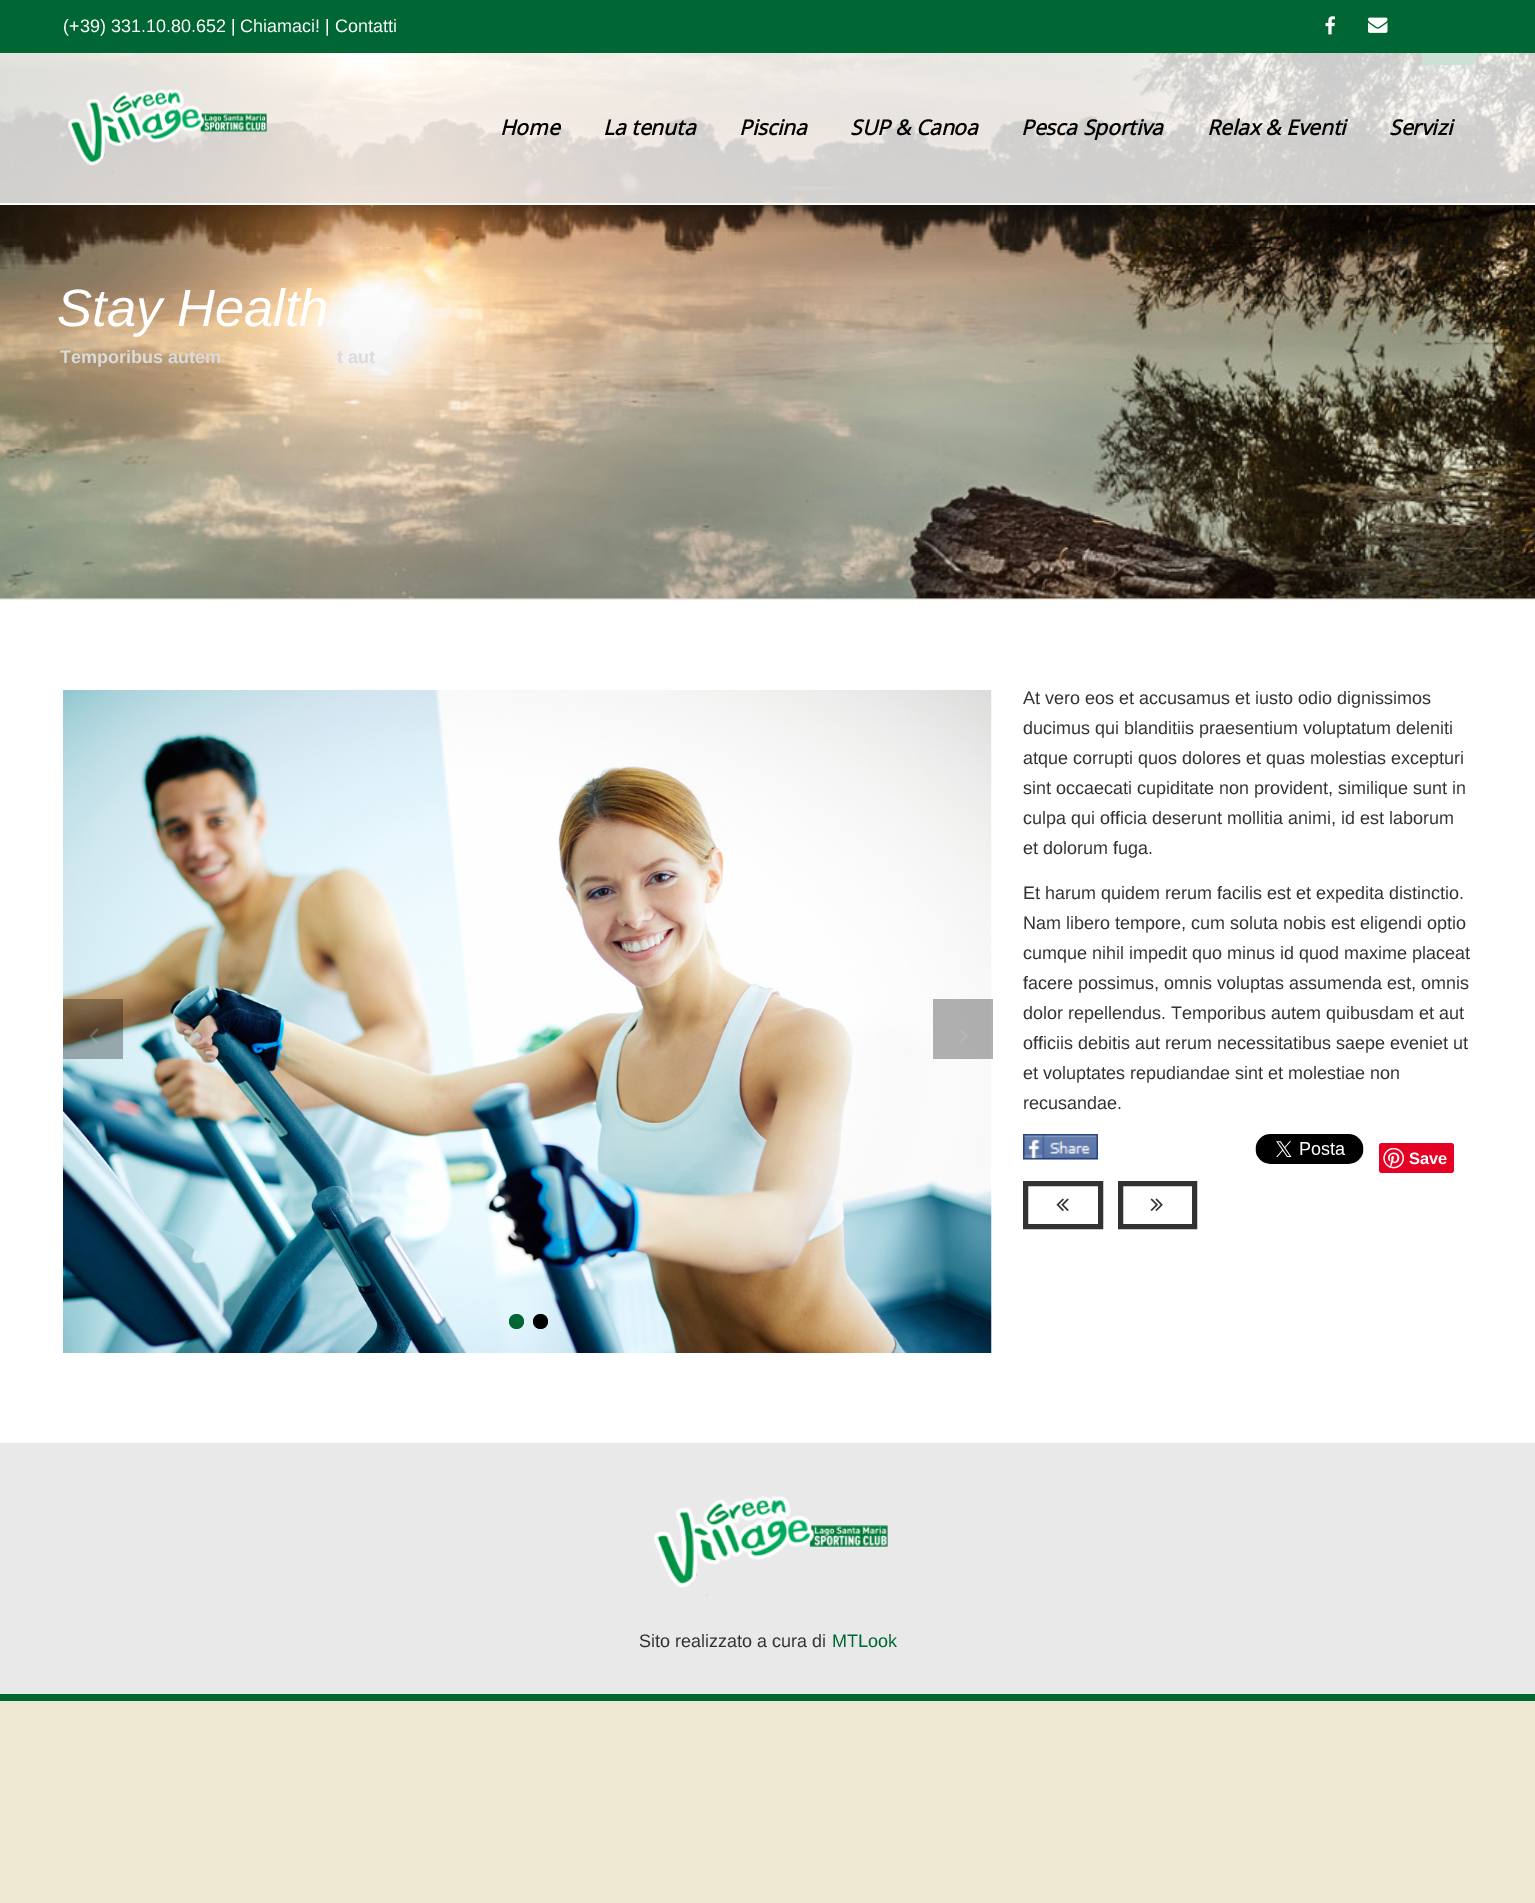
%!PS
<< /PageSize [1535 1903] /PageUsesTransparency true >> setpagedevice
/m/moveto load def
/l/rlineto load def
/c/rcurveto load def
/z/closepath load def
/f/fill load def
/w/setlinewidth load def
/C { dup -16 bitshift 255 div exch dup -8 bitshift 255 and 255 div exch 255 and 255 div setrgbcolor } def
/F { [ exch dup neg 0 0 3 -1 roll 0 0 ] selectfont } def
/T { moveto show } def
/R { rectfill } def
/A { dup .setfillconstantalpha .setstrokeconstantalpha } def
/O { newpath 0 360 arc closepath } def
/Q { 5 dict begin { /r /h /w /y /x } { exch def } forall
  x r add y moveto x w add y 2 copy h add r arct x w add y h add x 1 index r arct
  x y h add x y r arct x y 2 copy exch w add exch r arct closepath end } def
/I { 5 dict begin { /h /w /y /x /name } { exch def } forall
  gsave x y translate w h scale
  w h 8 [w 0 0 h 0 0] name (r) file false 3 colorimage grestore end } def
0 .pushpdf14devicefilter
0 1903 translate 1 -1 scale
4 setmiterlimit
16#EFE9D3 C
0 0 1535 1903 R
16#006633 C
0 0 1535 53 R
/LiberationSans-Regular 18 F
16#FFFFFF C
(\(+39\) 331.10.80.652 | Chiamaci!) 63 32 T
(| Contatti) 325 32 T
(1.rgb) 1325 16 10 19 I
(2.rgb) 1368 17 20 16 I
(5.rgb) 0 53 1535 546 I
16#006633 C
1422 0 m 53 0 l 0 61 l 0 2 -2 4 -4 4 c -49 0 l z f
1473 0 m 35 0 l -35 64 l z f
0.15 A
16#FFFFFF C
1421 65 54 60 R
0.8 A
0 53 1535 150 R
1 A
0 203 1535 2 R
(3.rgb) 68 89 199 84 I
/OpenSans-BoldItalic 21 F
16#000000 C
(Home) 500 135 T
(La tenuta) 603 135 T
(Piscina) 739 135 T
(SUP & Canoa) 850 135 T
(Pesca Sportiva) 1021 135 T
(Relax & Eventi) 1207 135 T
(Servizi) 1389 135 T
(4.rgb) 116 205 1201 27 I
16#E9E9E9 C
0 599 1535 1 R
/LiberationSans-Italic 52.5 F
16#FFFFFF C
(Stay Health) 57 326 T
/LiberationSans-Bold 18 F
16#DBDBDB C
(Temporibus autem) 60 363 T
(t aut) 337 363 T
16#FFFFFF C
0 600 1535 843 R
(6.rgb) 63 690 929 663 I
0.3 A
16#000000 C
63 999 60 60 R
1 A
(7.rgb) 89 1028 10 16 I
0.3 A
933 999 60 60 R
1 A
(8.rgb) 959 1029 9 15 I
16#006633 C
516.5 1321.5 7.5 O f
16#000000 C
540.5 1321.5 7.5 O f
/LiberationSans-Regular 18 F
16#323232 C
(At vero eos et accusamus et iusto odio dignissimos) 1023 704 T
(ducimus qui blanditiis praesentium voluptatum deleniti) 1023 734 T
(atque corrupti quos dolores et quas molestias excepturi) 1023 764 T
(sint occaecati cupiditate non provident, similique sunt in) 1023 794 T
(culpa qui officia deserunt mollitia animi, id est laborum) 1023 824 T
(et dolorum fuga.) 1023 854 T
(Et harum quidem rerum facilis est et expedita distinctio.) 1023 899 T
(Nam libero tempore, cum soluta nobis est eligendi optio) 1023 929 T
(cumque nihil impedit quo minus id quod maxime placeat) 1023 959 T
(facere possimus, omnis voluptas assumenda est, omnis) 1023 989 T
(dolor repellendus. Temporibus autem quibusdam et aut) 1023 1019 T
(officiis debitis aut rerum necessitatibus saepe eveniet ut) 1023 1049 T
(et voluptates repudiandae sint et molestiae non) 1023 1079 T
(recusandae.) 1023 1109 T
(9.rgb) 1023 1134 75 26 I
(10.rgb) 1255 1134 109 30 I
16#E60023 C
1379 1143 75 30 3 Q f
(11.rgb) 1383 1148 21 21 I
/LiberationSans-Bold 16.5 F
16#FFFFFF C
(Save) 1409 1164 T
16#323232 C
5 w
1025.5 1183.5 75 43 rectstroke
(12.rgb) 1056 1198 13 13 I
1120.5 1183.5 74 43 rectstroke
(13.rgb) 1150 1198 13 13 I
16#E9E9E9 C
0 1443 1535 251 R
16#006633 C
0 1694 1535 7 R
(14.rgb) 654 1496 234 100 I
/LiberationSans-Regular 18 F
16#323232 C
(Sito realizzato a cura di) 639 1647 T
16#006633 C
(MTLook) 832 1647 T
.poppdf14devicefilter showpage
